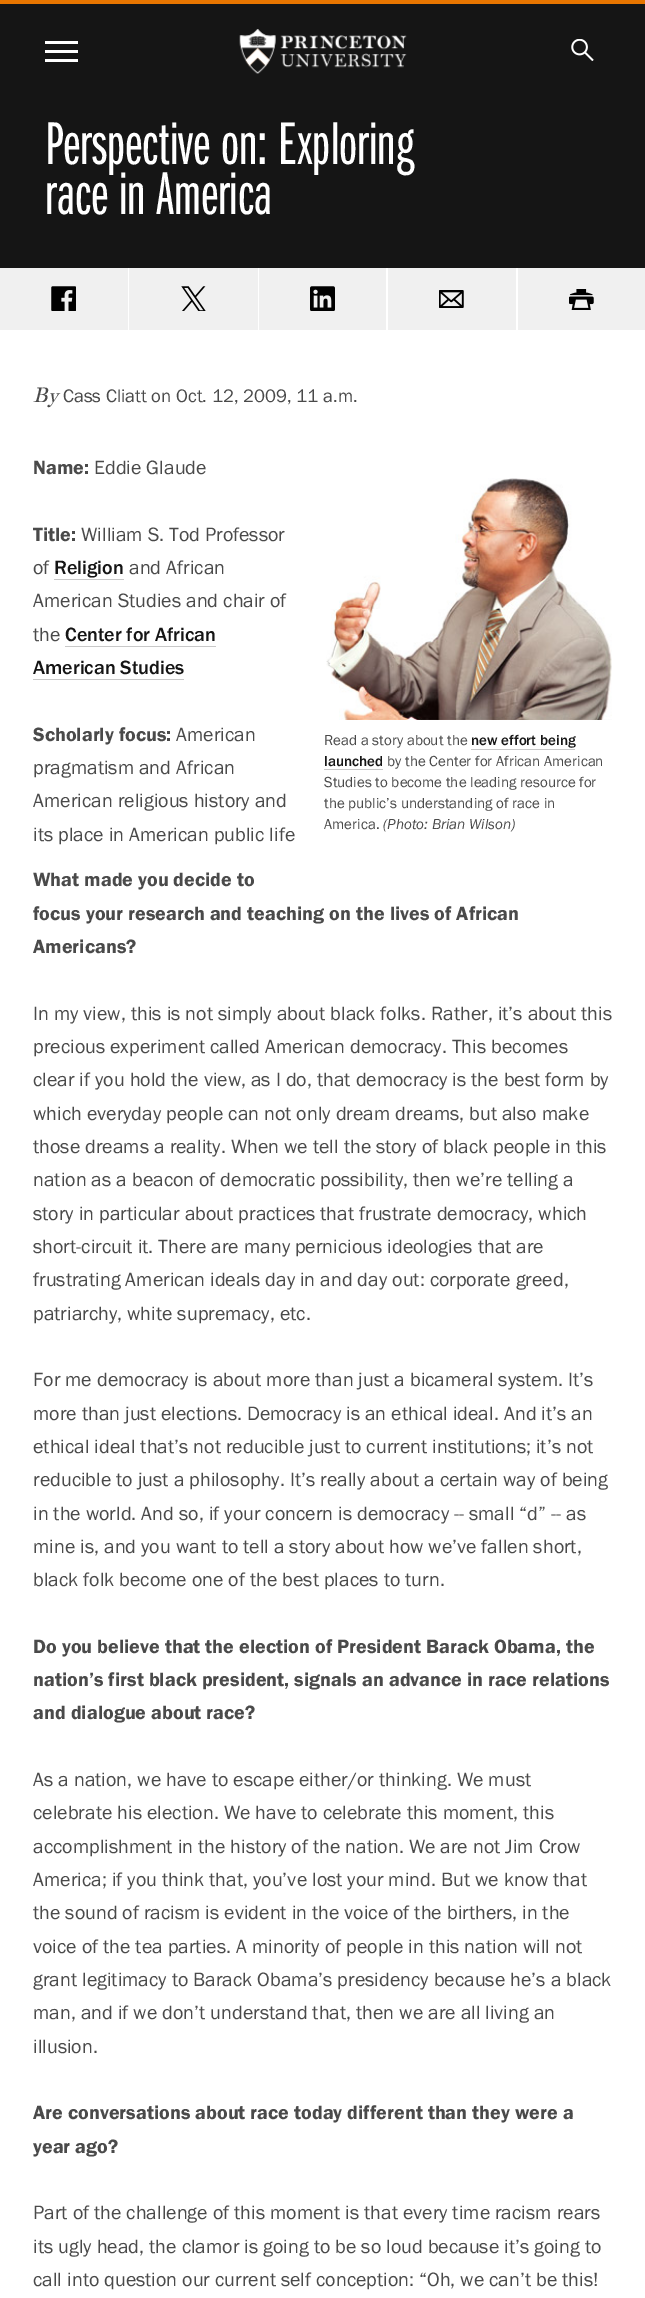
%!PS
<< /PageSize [645 2298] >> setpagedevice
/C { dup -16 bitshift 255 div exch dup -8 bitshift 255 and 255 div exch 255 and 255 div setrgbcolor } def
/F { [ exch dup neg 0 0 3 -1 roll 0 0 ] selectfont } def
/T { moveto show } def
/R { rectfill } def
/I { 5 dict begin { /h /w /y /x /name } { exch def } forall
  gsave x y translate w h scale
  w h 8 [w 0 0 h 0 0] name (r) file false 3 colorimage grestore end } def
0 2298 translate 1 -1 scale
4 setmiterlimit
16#FFFFFF C
0 0 645 2298 R
16#E77500 C
0 0 645 4 R
16#151515 C
0 4 645 264 R
16#FFFFFF C
45 41 33 3 R
45 50 33 3 R
45 59 33 3 R
(1.rgb) 239 29 168 45 I
(2.rgb) 571 39 23 22 I
/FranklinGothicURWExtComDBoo-Regular 62.5 F
(Perspective on: Exploring) 45 164 T
(race in America) 45 214 T
16#F0F0F0 C
0 268 128 62 R
(3.rgb) 51 286 25 25 I
129 268 129 62 R
(4.rgb) 181 286 25 25 I
259 268 127 62 R
(5.rgb) 310 286 25 25 I
388 268 128 62 R
(6.rgb) 439 290 25 18 I
518 268 127 62 R
(7.rgb) 569 289 25 21 I
/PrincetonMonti-Italic 20 F
16#4A4A4A C
(By) 33 402 T
/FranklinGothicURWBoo-Regular 18.75 F
(Cass Cliatt on Oct. 12, 2009, 11 a.m.) 63 402 T
/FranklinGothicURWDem-Regular 20 F
(Name:) 33 474 T
/FranklinGothicURWBoo-Regular 20 F
(Eddie Glaude) 94 474 T
/FranklinGothicURWDem-Regular 20 F
(Title:) 33 541 T
/FranklinGothicURWBoo-Regular 20 F
(William S. Tod Professor) 81 541 T
(of) 33 574 T
/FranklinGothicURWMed-Regular 20 F
16#151515 C
(Religion) 54 574 T
16#C8C8C8 C
54 579 70 1 R
/FranklinGothicURWBoo-Regular 20 F
16#4A4A4A C
(and African) 129 574 T
(American Studies and chair of) 33 607 T
(the) 33 641 T
/FranklinGothicURWMed-Regular 20 F
16#151515 C
(Center for African) 65 641 T
16#C8C8C8 C
65 646 151 1 R
16#151515 C
(American Studies) 33 674 T
16#C8C8C8 C
33 679 151 1 R
/FranklinGothicURWDem-Regular 20 F
16#4A4A4A C
(Scholarly focus:) 33 741 T
/FranklinGothicURWBoo-Regular 20 F
(American) 176 741 T
(pragmatism and African) 33 774 T
(American religious history and) 33 807 T
(its place in American public life) 33 841 T
(8.rgb) 326 478 286 242 I
/FranklinGothicURWBoo-Regular 15 F
(Read a story about the) 324 745 T
/FranklinGothicURWMed-Regular 15 F
16#151515 C
(new effort being) 471 745 T
16#C8C8C8 C
471 749 104 1 R
16#151515 C
(launched) 324 766 T
16#C8C8C8 C
324 769 59 1 R
/FranklinGothicURWBoo-Regular 15 F
16#4A4A4A C
(by the Center for African American) 387 766 T
(Studies to become the leading resource for) 324 787 T
(the public’s understanding of race in) 324 808 T
(America.) 324 829 T
/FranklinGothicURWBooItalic-Italic 15 F
(\(Photo: Brian Wilson\)) 383 829 T
/FranklinGothicURWDem-Regular 20 F
(What made you decide to) 33 886 T
(focus your research and teaching on the lives of African) 33 920 T
(Americans?) 33 953 T
/FranklinGothicURWBoo-Regular 20 F
(In my view, this is not simply about black folks. Rather, it’s about this) 33 1020 T
(precious experiment called American democracy. This becomes) 33 1053 T
(clear if you hold the view, as I do, that democracy is the best form by) 33 1086 T
(which everyday people can not only dream dreams, but also make) 33 1120 T
(those dreams a reality. When we tell the story of black people in this) 33 1153 T
(nation as a beacon of democratic possibility, then we’re telling a) 33 1186 T
(story in particular about practices that frustrate democracy, which) 33 1220 T
(short-circuit it. There are many pernicious ideologies that are) 33 1253 T
(frustrating American ideals day in and day out: corporate greed,) 33 1286 T
(patriarchy, white supremacy, etc.) 33 1320 T
(For me democracy is about more than just a bicameral system. It’s) 33 1386 T
(more than just elections. Democracy is an ethical ideal. And it’s an) 33 1420 T
(ethical ideal that’s not reducible just to current institutions; it’s not) 33 1453 T
(reducible to just a philosophy. It’s really about a certain way of being) 33 1486 T
(in the world. And so, if your concern is democracy -- small “d” -- as) 33 1520 T
(mine is, and you want to tell a story about how we’ve fallen short,) 33 1553 T
(black folk become one of the best places to turn.) 33 1586 T
/FranklinGothicURWDem-Regular 20 F
(Do you believe that the election of President Barack Obama, the) 33 1653 T
(nation’s first black president, signals an advance in race relations) 33 1686 T
(and dialogue about race?) 33 1719 T
/FranklinGothicURWBoo-Regular 20 F
(As a nation, we have to escape either/or thinking. We must) 33 1786 T
(celebrate his election. We have to celebrate this moment, this) 33 1819 T
(accomplishment in the history of the nation. We are not Jim Crow) 33 1853 T
(America; if you think that, you’ve lost your mind. But we know that) 33 1886 T
(the sound of racism is evident in the voice of the birthers, in the) 33 1919 T
(voice of the tea parties. A minority of people in this nation will not) 33 1953 T
(grant legitimacy to Barack Obama’s presidency because he’s a black) 33 1986 T
(man, and if we don’t understand that, then we are all living an) 33 2019 T
(illusion.) 33 2053 T
/FranklinGothicURWDem-Regular 20 F
(Are conversations about race today different than they were a) 33 2119 T
(year ago?) 33 2153 T
/FranklinGothicURWBoo-Regular 20 F
(Part of the challenge of this moment is that every time racism rears) 33 2219 T
(its ugly head, the clamor is going to be so loud because it’s going to) 33 2253 T
(call into question our current self conception: “Oh, we can’t be this!) 33 2286 T
showpage
